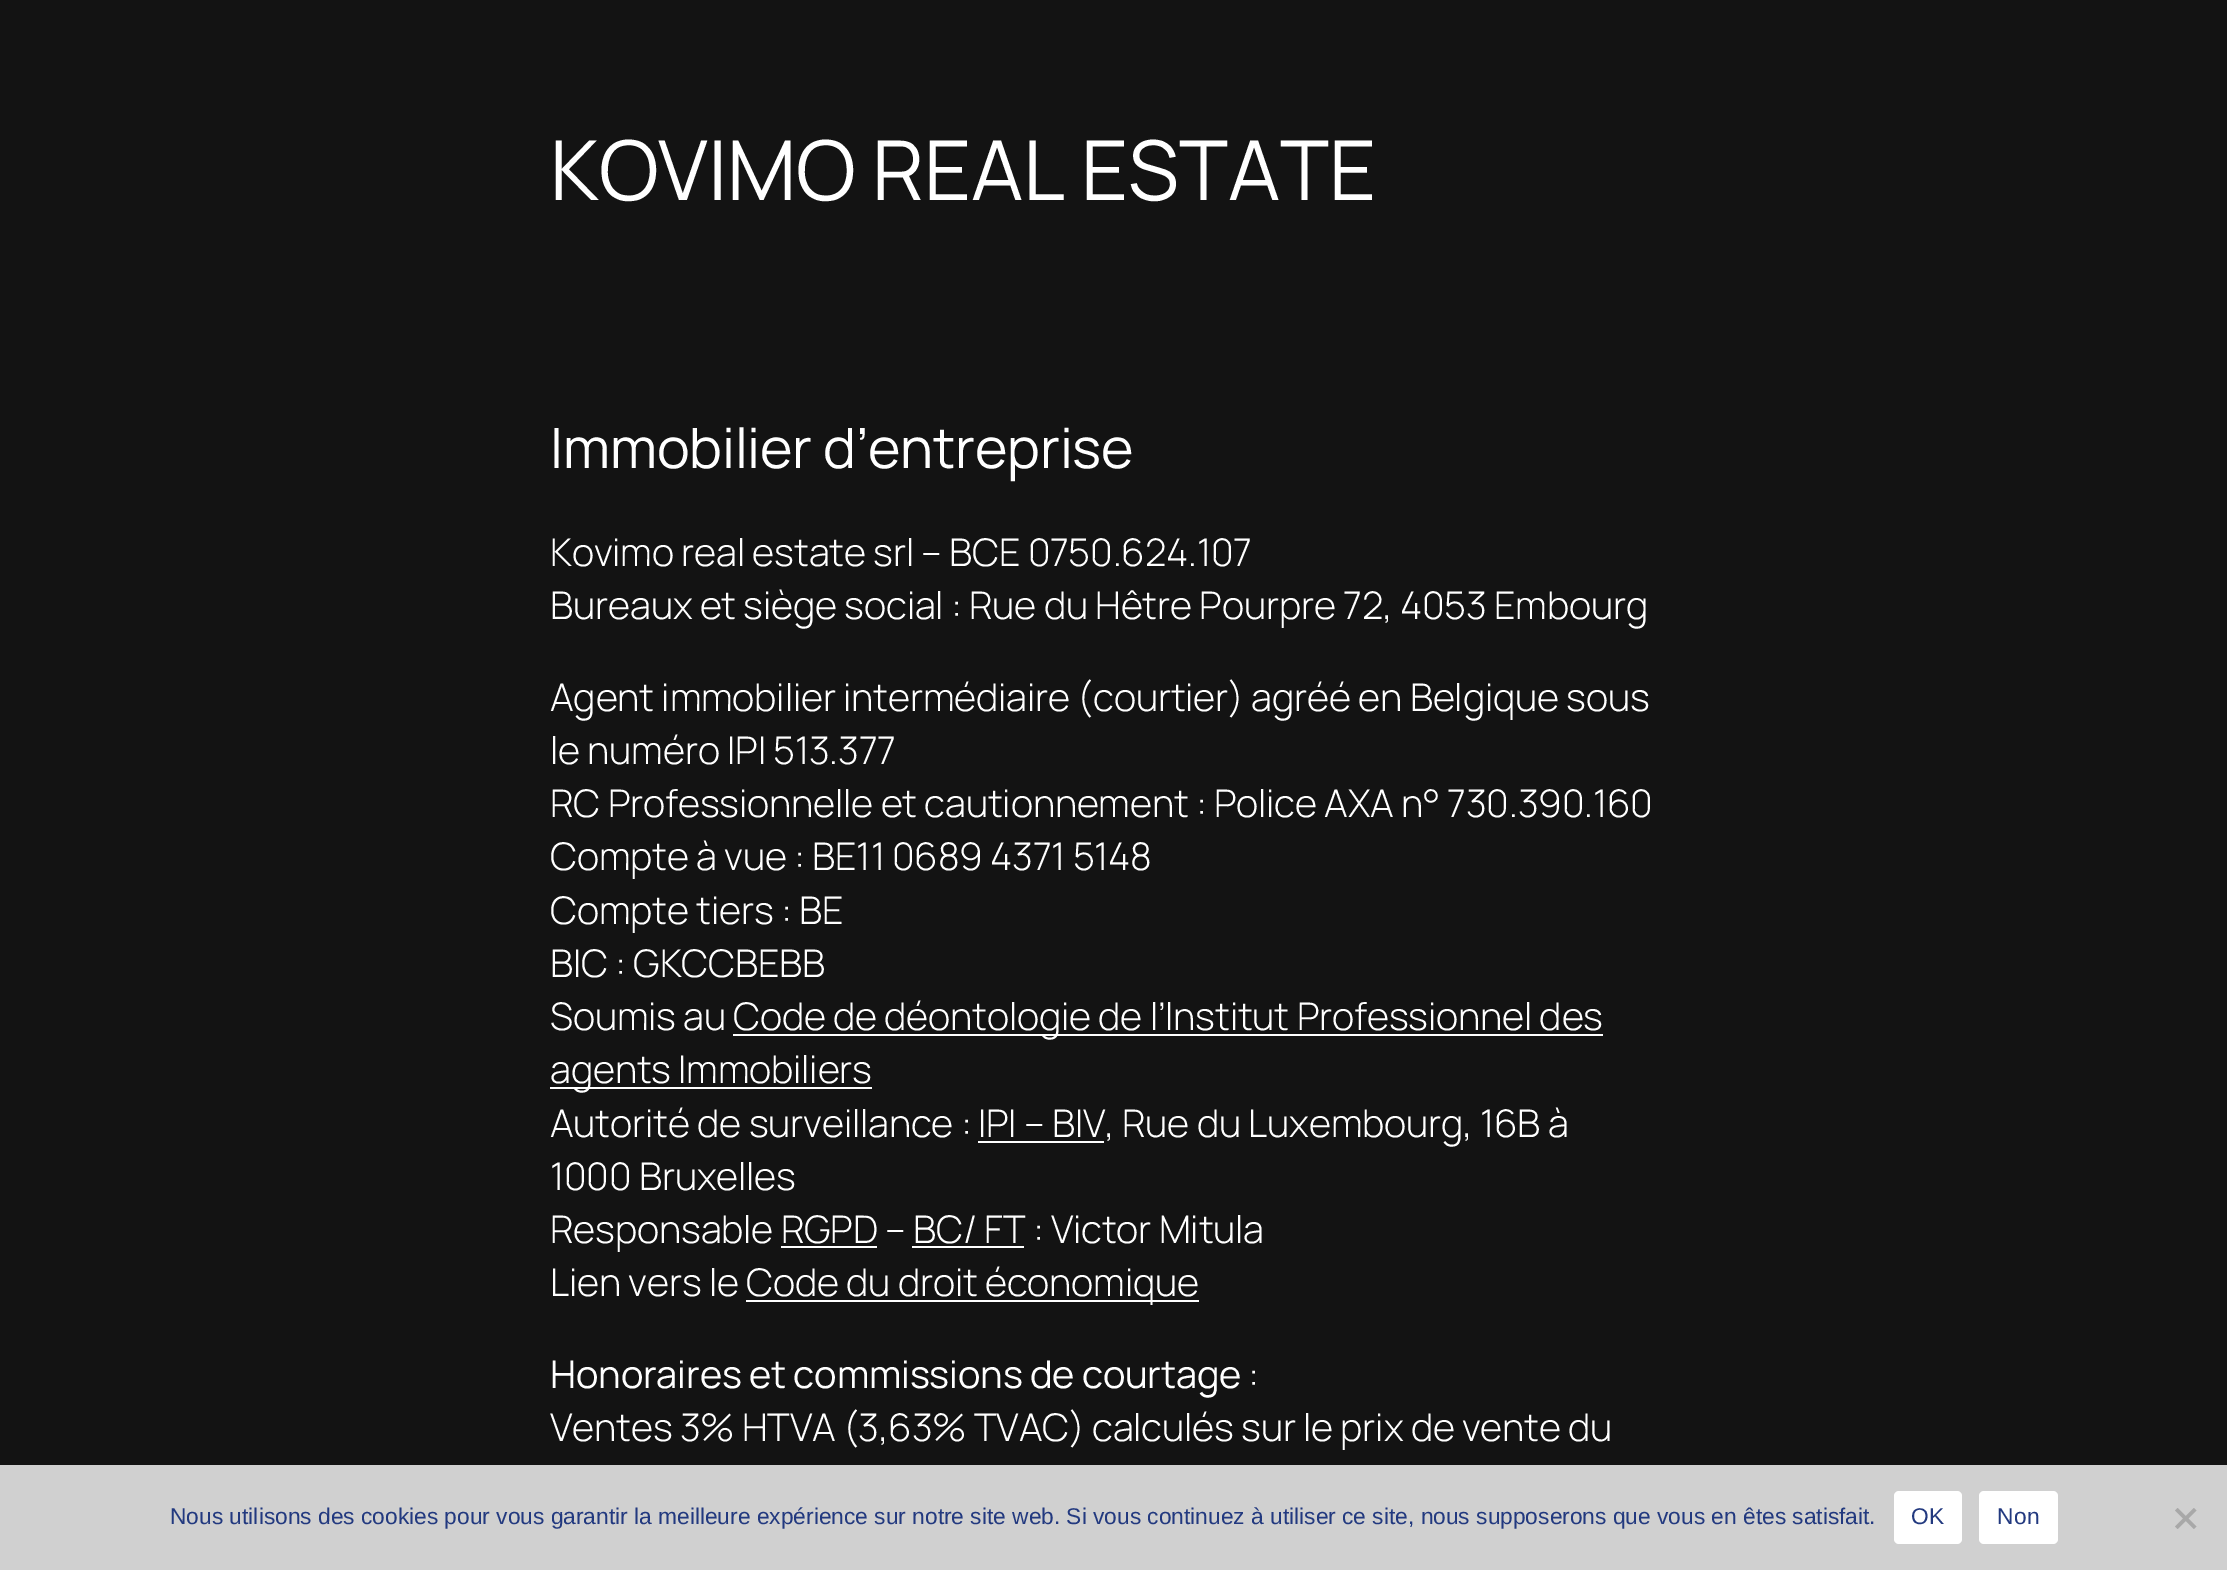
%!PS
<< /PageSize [2227 1570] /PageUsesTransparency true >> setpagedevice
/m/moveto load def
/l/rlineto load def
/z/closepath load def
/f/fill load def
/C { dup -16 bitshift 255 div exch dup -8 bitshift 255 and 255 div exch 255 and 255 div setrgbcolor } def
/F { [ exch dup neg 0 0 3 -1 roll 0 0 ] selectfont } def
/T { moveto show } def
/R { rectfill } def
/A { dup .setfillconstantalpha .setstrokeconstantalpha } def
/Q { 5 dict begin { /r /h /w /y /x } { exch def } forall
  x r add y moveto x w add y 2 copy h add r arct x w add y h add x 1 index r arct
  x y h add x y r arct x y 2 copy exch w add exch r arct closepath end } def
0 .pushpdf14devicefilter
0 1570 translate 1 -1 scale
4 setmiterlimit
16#131313 C
0 0 2227 1570 R
/Manrope-Regular 82.5 F
16#FFFFFF C
550 200 m -.18 0 (KOVIMO REAL ESTATE) ashow
/Manrope-Regular 55.5 F
550 468 m -.18 0 (Immobilier d’entreprise) ashow
/Manrope-Light 38.05 F
550 566 m -.18 0 (Kovimo real estate srl – BCE 0750.624.107) ashow
550 619 m -.18 0 (Bureaux et siège social : Rue du Hêtre Pourpre 72, 4053 Embourg) ashow
550 711 m -.18 0 (Agent immobilier intermédiaire \(courtier\) agréé en Belgique sous) ashow
550 764 m -.18 0 (le numéro IPI 513.377) ashow
550 817 m -.18 0 (RC Professionnelle et cautionnement : Police AXA n° 730.390.160) ashow
550 870 m -.18 0 (Compte à vue : BE11 0689 4371 5148) ashow
550 924 m -.18 0 (Compte tiers : BE) ashow
550 977 m -.18 0 (BIC : GKCCBEBB) ashow
550 1030 m -.18 0 (Soumis au) ashow
733 1034 870 2 R
733 1030 m -.18 0 (Code de déontologie de l’lnstitut Professionnel des) ashow
550 1087 322 2 R
550 1083 m -.18 0 (agents Immobiliers) ashow
550 1137 m -.18 0 (Autorité de surveillance :) ashow
978 1141 126 2 R
978 1137 m -.18 0 (IPI – BIV, Rue du Luxembourg, 16B à) ashow
550 1190 m -.18 0 (1000 Bruxelles) ashow
550 1243 m -.18 0 (Responsable RGPD – BC/ FT : Victor Mitula) ashow
781 1246 96 2 R
912 1246 112 2 R
550 1296 m -.18 0 (Lien vers le) ashow
746 1300 453 2 R
746 1296 m -.18 0 (Code du droit économique) ashow
/Manrope-Regular 38.05 F
550 1388 m -.18 0 (Honoraires et commissions de courtage) ashow
/Manrope-Light 38.05 F
1248 1388 m -.18 0 (:) ashow
550 1441 m -.18 0 (Ventes 3% HTVA \(3,63% TVAC\) calculés sur le prix de vente du) ashow
0.8 A
0 1465 2227 105 R
/LiberationSans-Regular 22.75 F
1 A
16#22397F C
(Nous utilisons des cookies pour vous garantir la meilleure expérience sur notre site web. Si vous continuez à utiliser ce site, nous supposerons que vous en êtes satisfait.) 170 1524 T
16#FFFFFF C
1894 1491 68 53 5 Q f
16#22397F C
1911 1524 m .5 0 (OK) ashow
16#FFFFFF C
1979 1491 79 53 5 Q f
16#22397F C
1997 1524 m .5 0 (Non) ashow
16#A8A8A8 C
2194 1508 m 2.5 2.5 l -19 18.5 l -2.5 -2.5 l z f
2175 1510.5 m 2.5 -2.5 l 19 18.5 l -2.5 2.5 l z f
.poppdf14devicefilter showpage
